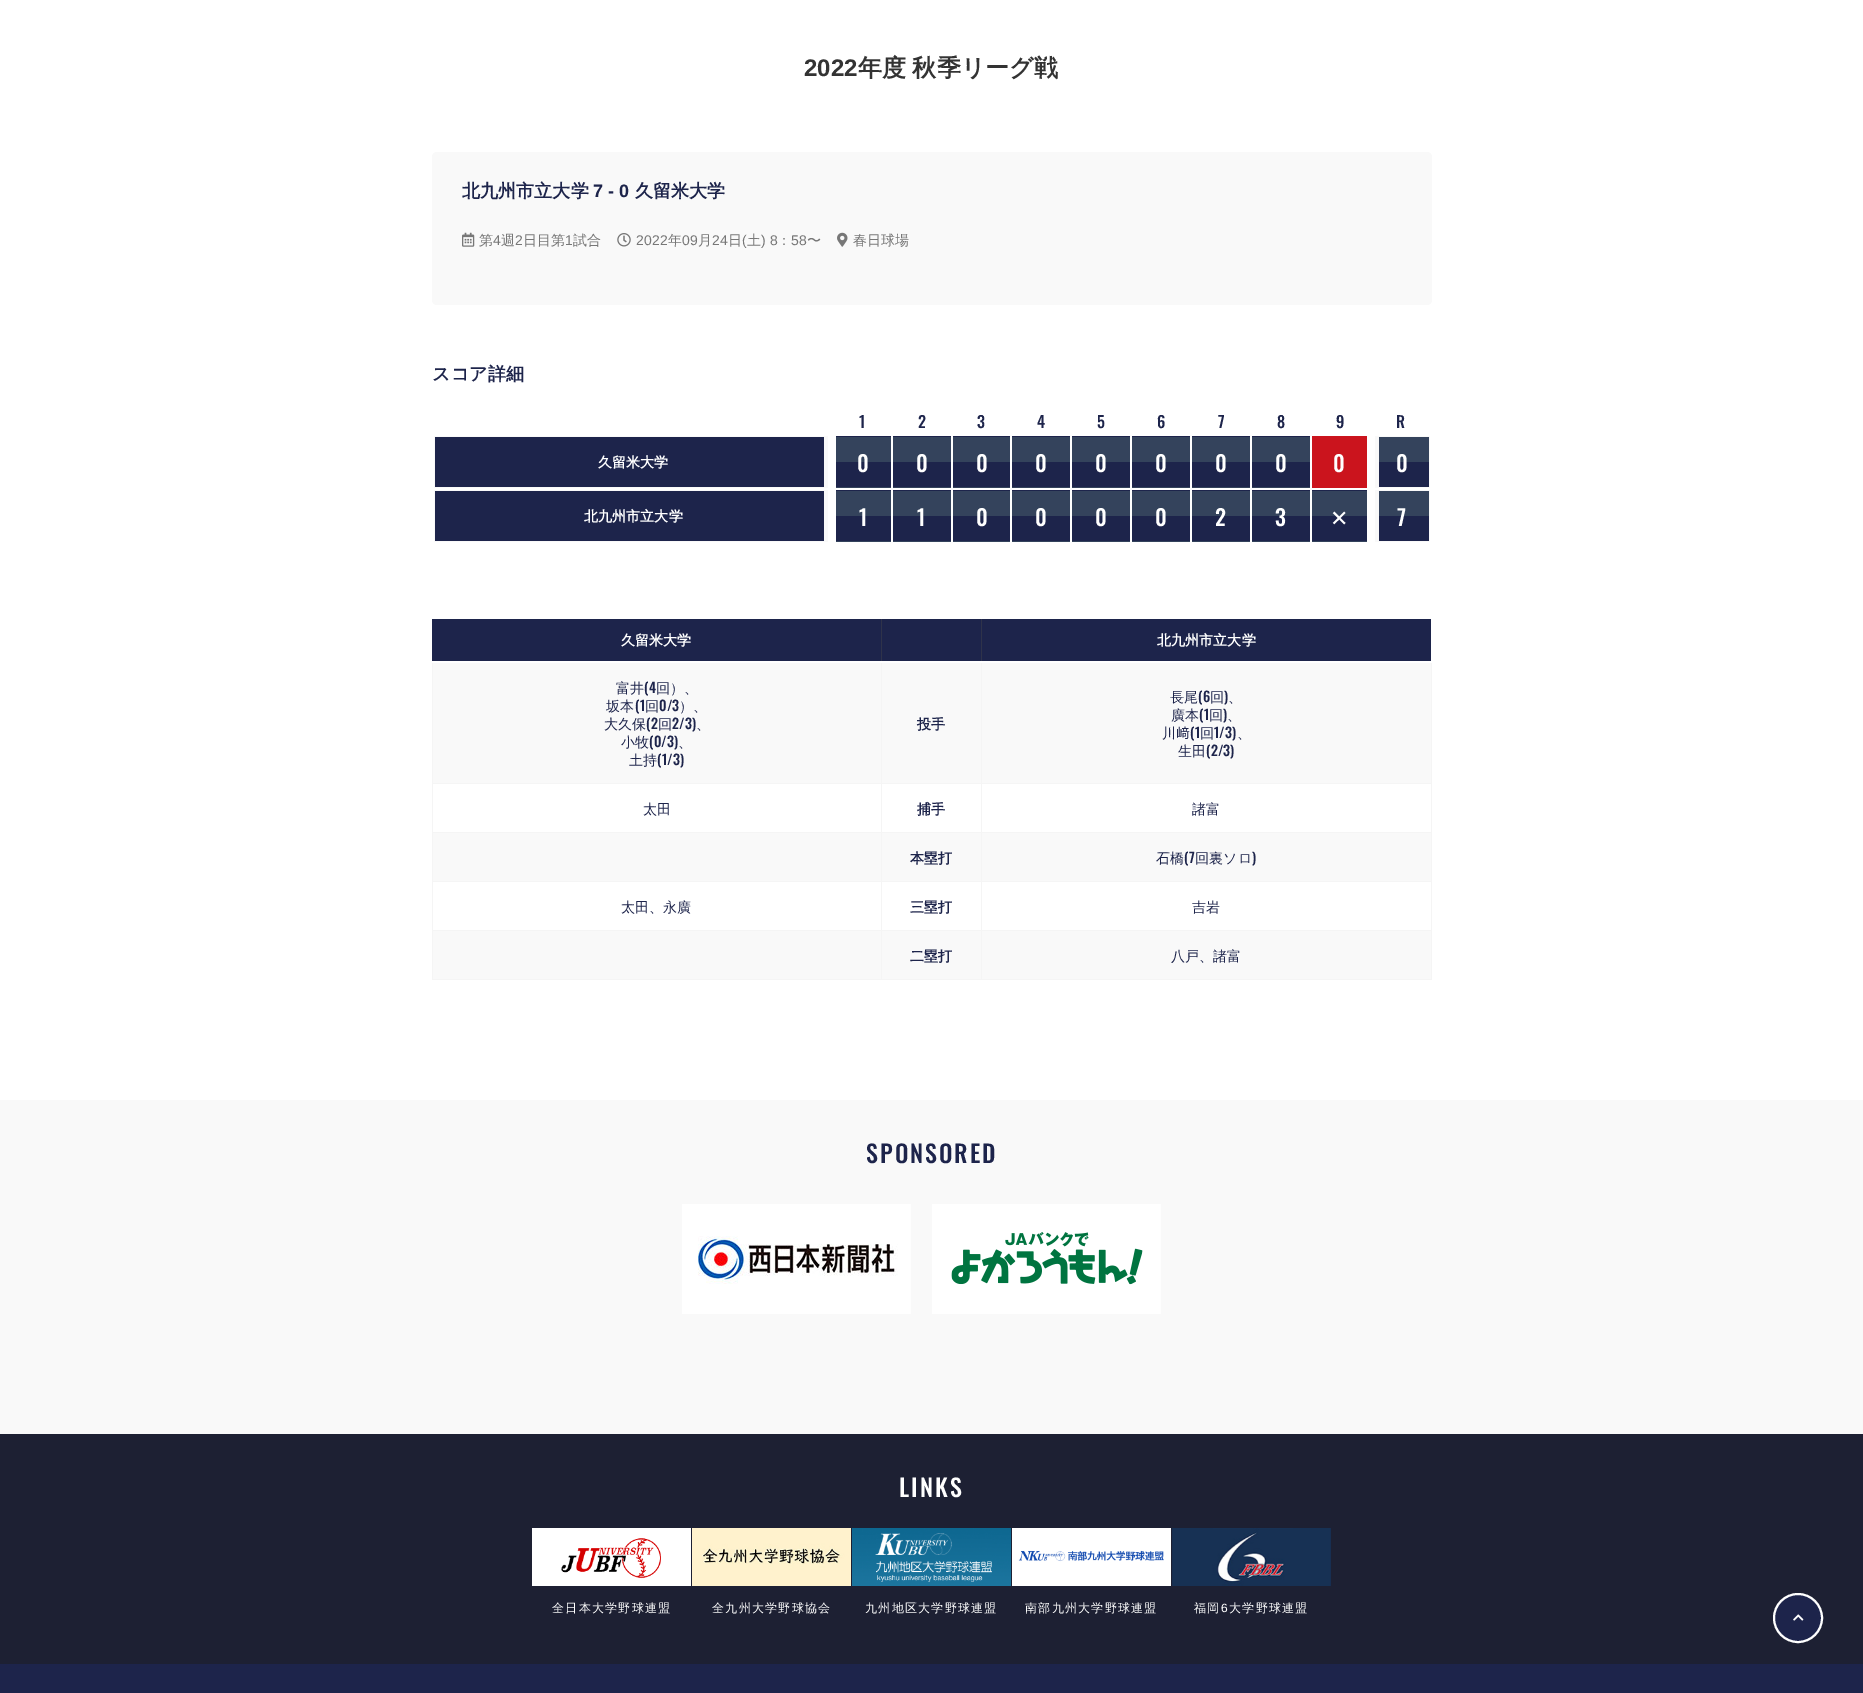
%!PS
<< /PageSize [1863 1693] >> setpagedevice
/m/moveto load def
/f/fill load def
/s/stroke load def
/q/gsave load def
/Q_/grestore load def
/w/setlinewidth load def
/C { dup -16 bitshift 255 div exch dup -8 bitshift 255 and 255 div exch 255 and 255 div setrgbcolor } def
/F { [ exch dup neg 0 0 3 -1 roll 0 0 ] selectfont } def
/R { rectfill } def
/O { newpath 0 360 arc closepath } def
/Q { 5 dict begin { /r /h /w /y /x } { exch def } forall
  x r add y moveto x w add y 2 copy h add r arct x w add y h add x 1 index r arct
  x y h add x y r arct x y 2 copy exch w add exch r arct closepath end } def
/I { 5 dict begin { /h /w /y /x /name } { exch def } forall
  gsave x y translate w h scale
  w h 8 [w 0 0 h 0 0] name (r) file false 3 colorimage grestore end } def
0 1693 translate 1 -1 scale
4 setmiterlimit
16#FFFFFF C
0 0 1863 1693 R
/LiberationSans-Bold 24 F
16#333333 C
804 76 m .1 0 (2022) ashow
/WenQuanYiZenHei-Bold 24 F
858 76 m -1 0 32 .1 0 (年度 秋季リーグ戦) awidthshow
16#F9F9F9 C
432 152 1000 153 5 Q f
/WenQuanYiZenHei-Bold 18 F
16#1D244B C
462 197 m .1 0 (北九州市立大学) ashow
/LiberationSans-Bold 18 F
593 197 m .1 0 (7 - 0) ashow
/WenQuanYiZenHei-Bold 18 F
635 197 m .1 0 (久留米大学) ashow
(1.rgb) 462 232 13 15 I
/WenQuanYiZenHei-Medium 14 F
16#777777 C
479 245 m .1 0 (第) ashow
/LiberationSans-Regular 14 F
493 245 m .1 0 (4) ashow
/WenQuanYiZenHei-Medium 14 F
501 245 m .1 0 (週) ashow
/LiberationSans-Regular 14 F
515 245 m .1 0 (2) ashow
/WenQuanYiZenHei-Medium 14 F
523 245 m .1 0 (日目第) ashow
/LiberationSans-Regular 14 F
565 245 m .1 0 (1) ashow
/WenQuanYiZenHei-Medium 14 F
573 245 m .1 0 (試合) ashow
(2.rgb) 617 233 14 14 I
/LiberationSans-Regular 14 F
636 245 m .1 0 (2022) ashow
/WenQuanYiZenHei-Medium 14 F
668 245 m .1 0 (年) ashow
/LiberationSans-Regular 14 F
682 245 m .1 0 (09) ashow
/WenQuanYiZenHei-Medium 14 F
698 245 m .1 0 (月) ashow
/LiberationSans-Regular 14 F
712 245 m .1 0 (24) ashow
/WenQuanYiZenHei-Medium 14 F
728 245 m .1 0 (日) ashow
/LiberationSans-Regular 14 F
742 245 m .1 0 (\() ashow
/WenQuanYiZenHei-Medium 14 F
747 245 m .1 0 (土) ashow
/LiberationSans-Regular 14 F
761 245 m .1 0 (\) 8) ashow
/WenQuanYiZenHei-Medium 14 F
777 245 m .1 0 (：) ashow
/LiberationSans-Regular 14 F
791 245 m .1 0 (58) ashow
/WenQuanYiZenHei-Medium 14 F
807 245 m .1 0 (〜) ashow
(3.rgb) 837 232 11 15 I
853 245 m .1 0 (春日球場) ashow
/WenQuanYiZenHei-Bold 18 F
16#1D244B C
432 380 m .1 0 (スコア詳細) ashow
/Oswald-Medium 16 F
859 428 m .1 0 (1) ashow
918 428 m .1 0 (2) ashow
977 428 m .1 0 (3) ashow
1037 428 m .1 0 (4) ashow
1097 428 m .1 0 (5) ashow
1157 428 m .1 0 (6) ashow
1218 428 m .1 0 (7) ashow
1277 428 m .1 0 (8) ashow
1336 428 m .1 0 (9) ashow
1396 428 m .1 0 (R) ashow
16#F9F9F9 C
434 436 996 52 R
16#1D244B C
435 437 389 50 R
/WenQuanYiZenHei-Bold 14 F
16#FFFFFF C
598 467 m .1 0 (久留米大学) ashow
16#1D244B C
832 436 479 1 R
16#34435C C
836 437 55 25 R
16#1D244B C
836 462 55 25 R
16#34435C C
832 487 479 1 R
/Oswald-Medium 22 F
16#FFFFFF C
857 472 m .1 0 (0) ashow
16#34435C C
893 437 58 25 R
16#1D244B C
893 462 58 25 R
16#FFFFFF C
916 472 m .1 0 (0) ashow
16#34435C C
953 437 57 25 R
16#1D244B C
953 462 57 25 R
16#FFFFFF C
976 472 m .1 0 (0) ashow
16#34435C C
1012 437 58 25 R
16#1D244B C
1012 462 58 25 R
16#FFFFFF C
1035 472 m .1 0 (0) ashow
16#34435C C
1072 437 58 25 R
16#1D244B C
1072 462 58 25 R
16#FFFFFF C
1095 472 m .1 0 (0) ashow
16#34435C C
1132 437 58 25 R
16#1D244B C
1132 462 58 25 R
16#FFFFFF C
1155 472 m .1 0 (0) ashow
16#34435C C
1192 437 58 25 R
16#1D244B C
1192 462 58 25 R
16#FFFFFF C
1215 472 m .1 0 (0) ashow
16#34435C C
1252 437 58 25 R
16#1D244B C
1252 462 58 25 R
16#FFFFFF C
1275 472 m .1 0 (0) ashow
16#CB141D C
1312 436 55 52 R
16#FFFFFF C
1333 472 m .1 0 (0) ashow
16#34435C C
1379 437 50 25 R
16#1D244B C
1379 462 50 25 R
16#FFFFFF C
1396 472 m .1 0 (0) ashow
16#F9F9F9 C
434 490 996 52 R
16#1D244B C
435 491 389 50 R
832 490 539 1 R
16#34435C C
832 541 539 1 R
16#FFFFFF C
828 431 8 116 R
/WenQuanYiZenHei-Bold 14 F
584 521 m .1 0 (北九州市立大学) ashow
16#34435C C
836 491 55 25 R
16#1D244B C
836 516 55 25 R
/Oswald-Medium 22 F
16#FFFFFF C
859 526 m .1 0 (1) ashow
16#34435C C
893 491 58 25 R
16#1D244B C
893 516 58 25 R
16#FFFFFF C
891 434 2 110 R
917 526 m .1 0 (1) ashow
16#34435C C
953 491 57 25 R
16#1D244B C
953 516 57 25 R
16#FFFFFF C
951 434 2 110 R
976 526 m .1 0 (0) ashow
16#34435C C
1012 491 58 25 R
16#1D244B C
1012 516 58 25 R
16#FFFFFF C
1010 434 2 110 R
1035 526 m .1 0 (0) ashow
16#34435C C
1072 491 58 25 R
16#1D244B C
1072 516 58 25 R
16#FFFFFF C
1070 434 2 110 R
1095 526 m .1 0 (0) ashow
16#34435C C
1132 491 58 25 R
16#1D244B C
1132 516 58 25 R
16#FFFFFF C
1130 434 2 110 R
1155 526 m .1 0 (0) ashow
16#34435C C
1192 491 58 25 R
16#1D244B C
1192 516 58 25 R
16#FFFFFF C
1190 434 2 110 R
1215 526 m .1 0 (2) ashow
16#34435C C
1252 491 58 25 R
16#1D244B C
1252 516 58 25 R
16#FFFFFF C
1250 434 2 110 R
1275 526 m .1 0 (3) ashow
16#34435C C
1312 491 55 25 R
16#1D244B C
1312 516 55 25 R
16#FFFFFF C
1310 434 2 110 R
/DejaVuSans-Regular 22 F
1330 526 m .1 0 (✕) ashow
16#34435C C
1379 491 50 25 R
16#1D244B C
1379 516 50 25 R
16#FFFFFF C
1367 431 8 116 R
/Oswald-Medium 22 F
1397 526 m .1 0 (7) ashow
16#1D244B C
432 619 999 42 R
16#F5F5F5 C
981 783 451 1 R
981 832 451 1 R
16#F9F9F9 C
433 833 998 48 R
16#F5F5F5 C
981 881 451 1 R
981 930 451 1 R
16#F9F9F9 C
433 931 998 48 R
16#F5F5F5 C
1431 930 1 50 R
981 979 451 1 R
981 930 1 50 R
881 930 101 1 R
981 881 1 50 R
881 881 101 1 R
981 832 1 50 R
881 832 101 1 R
981 783 1 50 R
881 783 101 1 R
881 979 101 1 R
881 930 1 50 R
432 930 450 1 R
881 881 1 50 R
432 881 450 1 R
881 832 1 50 R
432 832 450 1 R
881 783 1 50 R
432 783 450 1 R
432 979 450 1 R
432 930 1 50 R
432 881 1 50 R
432 832 1 50 R
432 662 1 171 R
16#FFFFFF C
431 662 2 1 R
/WenQuanYiZenHei-Bold 14 F
621 645 m .1 0 (久留米大学) ashow
16#F9F9F9 C
433 663 998 120 R
16#F5F5F5 C
981 662 1 122 R
16#2F334A C
981 619 1 44 R
16#F5F5F5 C
881 662 1 122 R
16#2F334A C
881 619 1 44 R
16#FFFFFF C
881 661 1 2 R
16#F5F5F5 C
1431 881 1 50 R
1431 832 1 50 R
1431 662 1 171 R
16#FFFFFF C
980 661 452 2 R
1157 645 m .1 0 (北九州市立大学) ashow
/WenQuanYiZenHei-Medium 14 F
16#1D244B C
616 693 m .1 0 (富井) ashow
/Oswald-Medium 14 F
644 693 m .1 0 (\(4) ashow
/WenQuanYiZenHei-Medium 14 F
656 693 m .1 0 (回）、) ashow
606 711 m .1 0 (坂本) ashow
/Oswald-Medium 14 F
635 711 m .1 0 (\(1) ashow
/WenQuanYiZenHei-Medium 14 F
645 711 m .1 0 (回) ashow
/Oswald-Medium 14 F
659 711 m .1 0 (0/3) ashow
/WenQuanYiZenHei-Medium 14 F
679 711 m .1 0 (）、) ashow
604 729 m .1 0 (大久保) ashow
/Oswald-Medium 14 F
646 729 m .1 0 (\(2) ashow
/WenQuanYiZenHei-Medium 14 F
658 729 m .1 0 (回) ashow
/Oswald-Medium 14 F
672 729 m .1 0 (2/3\)) ashow
/WenQuanYiZenHei-Medium 14 F
696 729 m .1 0 (、) ashow
621 747 m .1 0 (小牧) ashow
/Oswald-Medium 14 F
649 747 m .1 0 (\(0/3\)) ashow
/WenQuanYiZenHei-Medium 14 F
678 747 m .1 0 (、) ashow
629 765 m .1 0 (土持) ashow
/Oswald-Medium 14 F
657 765 m .1 0 (\(1/3\)) ashow
/WenQuanYiZenHei-Bold 14 F
917 729 m .1 0 (投手) ashow
/WenQuanYiZenHei-Medium 14 F
1170 702 m .1 0 (長尾) ashow
/Oswald-Medium 14 F
1198 702 m .1 0 (\(6) ashow
/WenQuanYiZenHei-Medium 14 F
1210 702 m .1 0 (回 、) ashow
/Oswald-Medium 14 F
1224 702 m .1 0 (\)) ashow
/WenQuanYiZenHei-Medium 14 F
1171 720 m .1 0 (廣本) ashow
/Oswald-Medium 14 F
1199 720 m .1 0 (\(1) ashow
/WenQuanYiZenHei-Medium 14 F
1209 720 m .1 0 (回 、) ashow
/Oswald-Medium 14 F
1223 720 m .1 0 (\)) ashow
/WenQuanYiZenHei-Medium 14 F
1162 738 m .1 0 (川) ashow
/IPAPGothic-Regular 14 F
1176 738 m .1 0 (﨑) ashow
/Oswald-Medium 14 F
1190 738 m .1 0 (\(1) ashow
/WenQuanYiZenHei-Medium 14 F
1200 738 m .1 0 (回) ashow
/Oswald-Medium 14 F
1214 738 m .1 0 (1/3\)) ashow
/WenQuanYiZenHei-Medium 14 F
1237 738 m .1 0 (、) ashow
1178 756 m .1 0 (生田) ashow
/Oswald-Medium 14 F
1206 756 m .1 0 (\(2/3\)) ashow
/WenQuanYiZenHei-Medium 14 F
643 814 m .1 0 (太田) ashow
/WenQuanYiZenHei-Bold 14 F
917 814 m .1 0 (捕手) ashow
/WenQuanYiZenHei-Medium 14 F
1192 814 m .1 0 (諸富) ashow
/WenQuanYiZenHei-Bold 14 F
910 863 m .1 0 (本塁打) ashow
/WenQuanYiZenHei-Medium 14 F
1156 863 m .1 0 (石橋) ashow
/Oswald-Medium 14 F
1184 863 m .1 0 (\(7) ashow
/WenQuanYiZenHei-Medium 14 F
1195 863 m .1 0 (回裏ソロ) ashow
/Oswald-Medium 14 F
1252 863 m .1 0 (\)) ashow
/WenQuanYiZenHei-Medium 14 F
621 912 m .1 0 (太田、永廣) ashow
/WenQuanYiZenHei-Bold 14 F
910 912 m .1 0 (三塁打) ashow
/WenQuanYiZenHei-Medium 14 F
1192 912 m .1 0 (吉岩) ashow
/WenQuanYiZenHei-Bold 14 F
910 961 m .1 0 (二塁打) ashow
/WenQuanYiZenHei-Medium 14 F
1171 961 m .1 0 (八戸、諸富) ashow
16#F9F9F9 C
0 1100 1863 334 R
/Oswald-Medium 24 F
16#1D244B C
866 1163 m 2 0 (SPONSORED) ashow
(4.rgb) 682 1204 229 110 I
(5.rgb) 932 1204 229 110 I
16#1D2033 C
0 1434 1863 230 R
16#FFFFFF C
899 1497 m 2 0 (LINKS) ashow
(6.rgb) 532 1528 159 58 I
/WenQuanYiZenHei-Medium 12 F
552 1612 m 1.25 0 (全日本大学野球連盟) ashow
(7.rgb) 692 1528 159 58 I
712 1612 m 1.25 0 (全九州大学野球協会) ashow
(8.rgb) 852 1528 159 58 I
865 1612 m 1.25 0 (九州地区大学野球連盟) ashow
(9.rgb) 1012 1528 159 58 I
1025 1612 m 1.25 0 (南部九州大学野球連盟) ashow
(10.rgb) 1172 1528 159 58 I
1194 1612 m 1.25 0 (福岡) ashow
/LiberationSans-Regular 12 F
1221 1612 m 1.25 0 (6) ashow
/WenQuanYiZenHei-Medium 12 F
1229 1612 m 1.25 0 (大学野球連盟) ashow
16#1D244B C
1798 1618 24 O q f Q_
16#FFFFFF C
2 w
s
(11.rgb) 1793 1614 11 7 I
16#1D244B C
0 1664 1863 29 R
showpage
